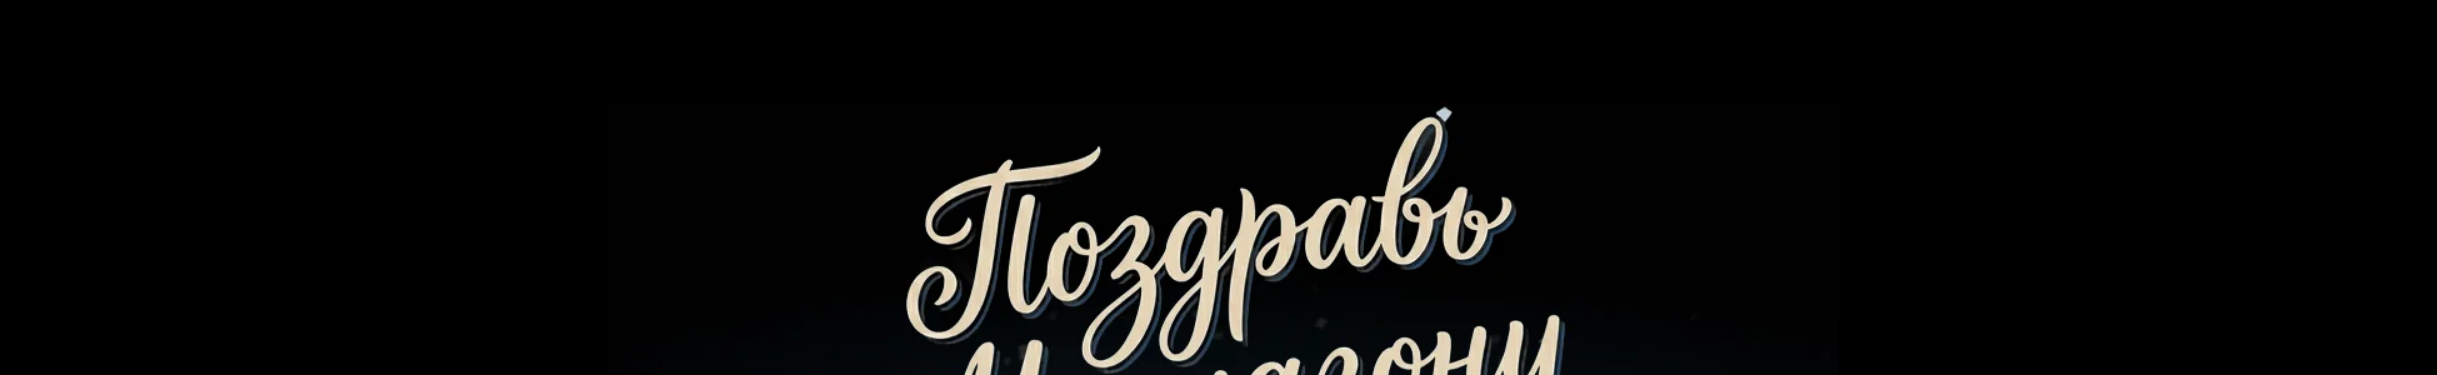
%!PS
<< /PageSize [2437 375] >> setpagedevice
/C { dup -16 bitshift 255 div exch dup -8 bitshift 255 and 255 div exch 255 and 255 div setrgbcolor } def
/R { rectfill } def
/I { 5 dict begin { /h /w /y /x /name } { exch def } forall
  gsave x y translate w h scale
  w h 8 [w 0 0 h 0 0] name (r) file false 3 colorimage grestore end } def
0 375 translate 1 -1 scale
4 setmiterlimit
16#000000 C
0 0 2437 375 R
(1.rgb) 608 100 1230 275 I
showpage
